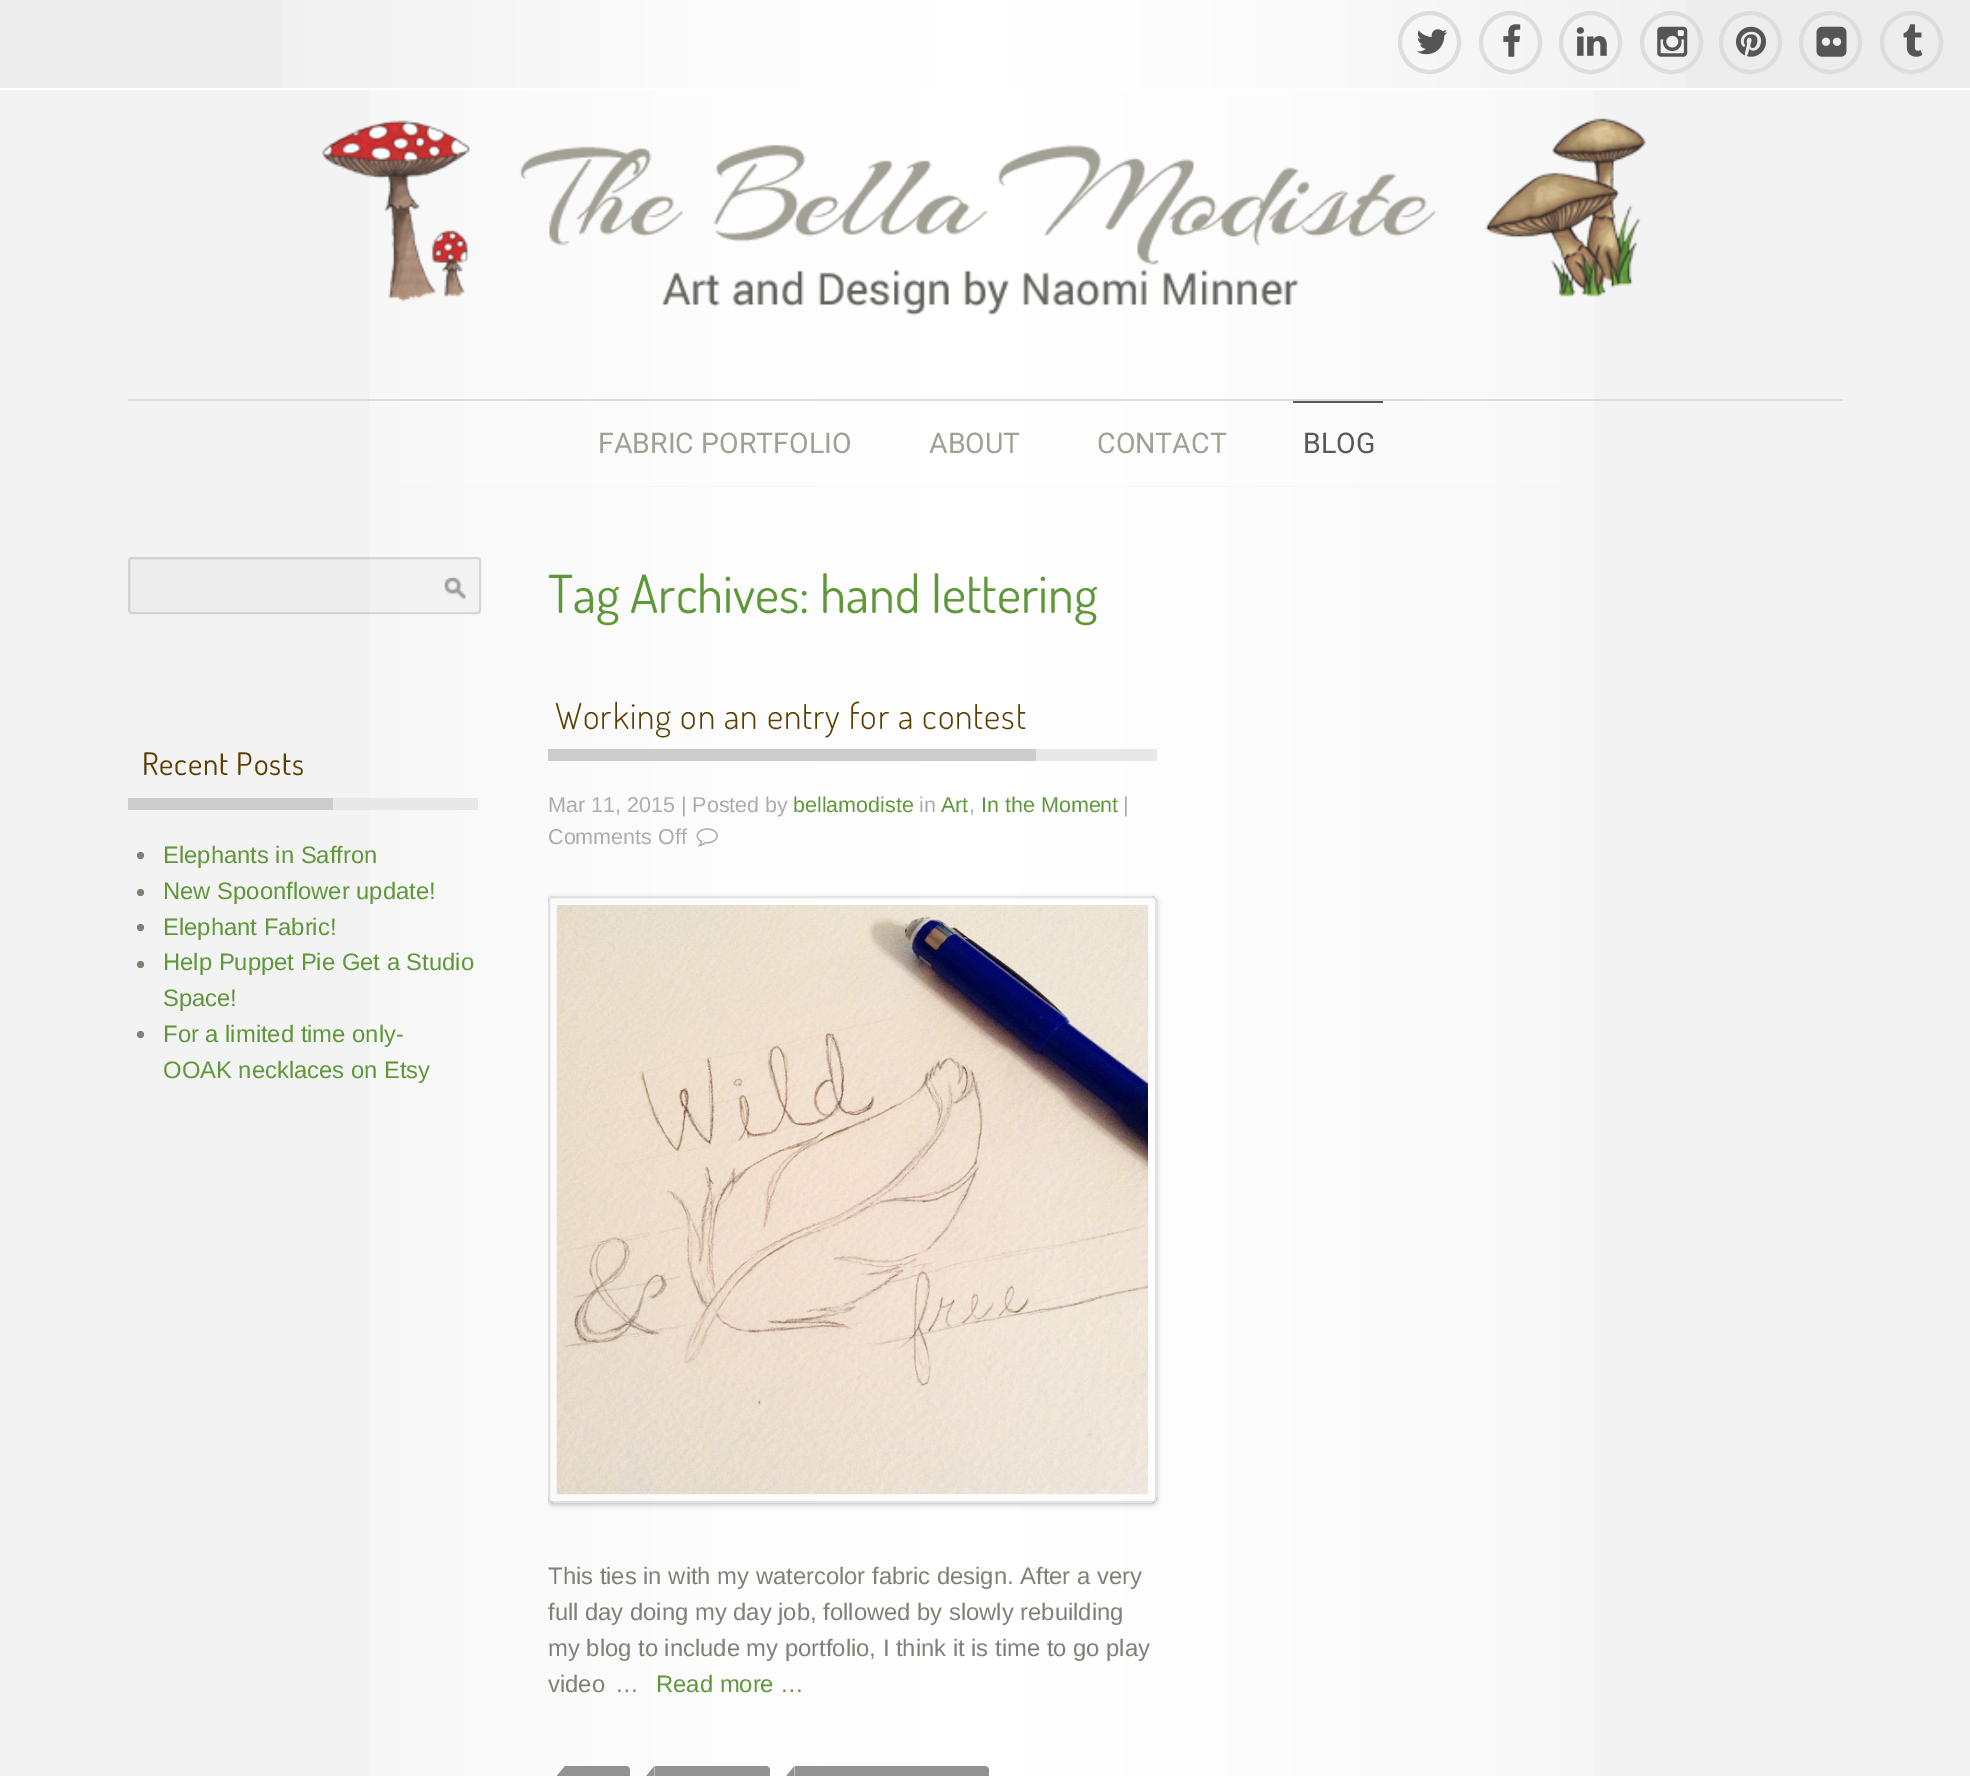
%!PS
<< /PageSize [1970 1776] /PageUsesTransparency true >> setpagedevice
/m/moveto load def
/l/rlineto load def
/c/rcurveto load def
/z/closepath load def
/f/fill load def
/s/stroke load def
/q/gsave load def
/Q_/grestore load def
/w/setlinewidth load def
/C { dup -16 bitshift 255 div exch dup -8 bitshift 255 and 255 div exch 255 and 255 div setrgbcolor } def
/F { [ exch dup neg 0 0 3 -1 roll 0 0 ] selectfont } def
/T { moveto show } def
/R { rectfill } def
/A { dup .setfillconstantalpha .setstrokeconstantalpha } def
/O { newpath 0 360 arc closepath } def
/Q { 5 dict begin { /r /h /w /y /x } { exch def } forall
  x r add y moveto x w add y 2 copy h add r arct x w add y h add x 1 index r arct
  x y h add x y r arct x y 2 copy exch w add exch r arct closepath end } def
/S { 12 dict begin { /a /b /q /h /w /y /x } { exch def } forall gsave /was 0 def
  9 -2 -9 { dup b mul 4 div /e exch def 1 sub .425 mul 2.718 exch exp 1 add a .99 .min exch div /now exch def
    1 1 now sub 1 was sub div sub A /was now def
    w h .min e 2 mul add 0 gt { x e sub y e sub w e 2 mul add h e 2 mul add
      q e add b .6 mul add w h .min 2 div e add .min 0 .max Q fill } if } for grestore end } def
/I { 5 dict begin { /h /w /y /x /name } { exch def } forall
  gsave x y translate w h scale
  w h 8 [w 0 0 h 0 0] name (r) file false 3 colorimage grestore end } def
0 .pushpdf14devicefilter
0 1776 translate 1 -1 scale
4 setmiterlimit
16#F3F3F3 C
0 0 1970 1776 R
(1.rgb) 369 90 1225 397 I
16#EDEDED C
0 0 1970 88 R
(2.rgb) 282 0 1403 88 I
16#FFFFFF C
0 88 1970 2 R
(3.rgb) 1416 29 32 26 I
16#DDDDDD C
4 w
1429.5 42.5 29.5 O s
(4.rgb) 1503 24 18 33 I
1510.5 42.5 29.5 O s
(5.rgb) 1576 27 31 29 I
1590.5 42.5 29.5 O s
(6.rgb) 1657 26 31 31 I
1671.5 42.5 29.5 O s
(7.rgb) 1736 26 30 31 I
1750.5 42.5 29.5 O s
(8.rgb) 1816 26 31 31 I
1830.5 42.5 29.5 O s
(9.rgb) 1903 24 20 33 I
1911.5 42.5 29.5 O s
(10.rgb) 321 118 1325 198 I
128 399 1715 2 R
/Roboto-Regular 28.5 F
16#A2A095 C
(FABRIC PORTFOLIO) 598 453 T
(ABOUT) 929 453 T
(CONTACT) 1097 453 T
16#575957 C
1293 401 90 2 R
(BLOG) 1303 453 T
(11.rgb) 369 487 1225 1289 I
0.04 A
16#646464 C
128 557 353 57 R
0.2 A
2 w
129 558 351 55 3 Q s
1 A
(12.rgb) 444 577 22 22 I
16#E8E8E8 C
333 798 145 12 R
16#CCCCCC C
128 798 205 12 R
/Dosis-Regular 31 F
16#5B3D00 C
142 775 m .9 0 (Recent Posts) ashow
16#818077 C
140.5 855.5 3.5 O f
/LiberationSans-Regular 23.8 F
16#5F9839 C
(Elephants in Saffron) 163 863 T
16#818077 C
140.5 892.5 3.5 O f
16#5F9839 C
(New Spoonflower update!) 163 899 T
16#818077 C
140.5 927.5 3.5 O f
16#5F9839 C
(Elephant Fabric!) 163 935 T
16#818077 C
140.5 964.5 3.5 O f
16#5F9839 C
(Help Puppet Pie Get a Studio) 163 970 T
(Space!) 163 1006 T
16#818077 C
140.5 1034.5 3.5 O f
16#5F9839 C
(For a limited time only-) 163 1042 T
(OOAK necklaces on Etsy) 163 1078 T
/Dosis-Regular 52.4 F
(Tag Archives: hand lettering) 548 613 T
16#E8E8E8 C
1036 749 121 12 R
16#CCCCCC C
548 749 488 12 R
/Dosis-Light 35.75 F
16#5B3D00 C
555 729 m .9 0 (Working on an entry for a contest) ashow
/LiberationSans-Regular 21.5 F
16#ACACAC C
(Mar 11, 2015 | Posted by) 548 812 T
16#5F9839 C
(bellamodiste) 793 812 T
16#ACACAC C
(in) 919 812 T
16#5F9839 C
(Art) 941 812 T
16#ACACAC C
(,) 969 812 T
16#5F9839 C
(In the Moment) 981 812 T
16#ACACAC C
(|) 1123 812 T
(Comments Off) 548 844 T
(13.rgb) 696 828 22 19 I
q
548 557 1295 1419 rectclip
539 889 m 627 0 l 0 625 l -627 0 l z 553 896 m 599 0 l 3 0 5 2 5 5 c 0 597 l 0 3 -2 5 -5 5 c -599 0 l -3 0 -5 -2 -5 -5 c 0 -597 l 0 -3 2 -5 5 -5 c z eoclip newpath
16#000000 C
548 898 609 607 5 2.5 .2 S
Q_
0.1 A
16#000000 C
549 897 607 605 4 Q s
1 A
(14.rgb) 556 905 592 590 I
/LiberationSans-Regular 23.8 F
16#818077 C
(This ties in with my watercolor fabric design. After a very) 548 1584 T
(full day doing my day job, followed by slowly rebuilding) 548 1620 T
(my blog to include my portfolio, I think it is time to go play) 548 1656 T
(video) 548 1692 T
(…) 615 1692 T
16#5F9839 C
(Read more …) 656 1692 T
16#929292 C
565 1766 m 61 0 l 2 0 4 2 4 4 c 0 6 l 0 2 -2 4 -4 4 c -61 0 l z f
565 1766 m 0 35 l -14 -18 l z f
655 1766 m 111 0 l 2 0 4 2 4 4 c 0 6 l 0 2 -2 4 -4 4 c -111 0 l z f
654.5 1766 m 0 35 l -14 -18 l z f
795 1766 m 190 0 l 2 0 4 2 4 4 c 0 6 l 0 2 -2 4 -4 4 c -190 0 l z f
794.5 1766 m 0 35 l -14 -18 l z f
.poppdf14devicefilter showpage
